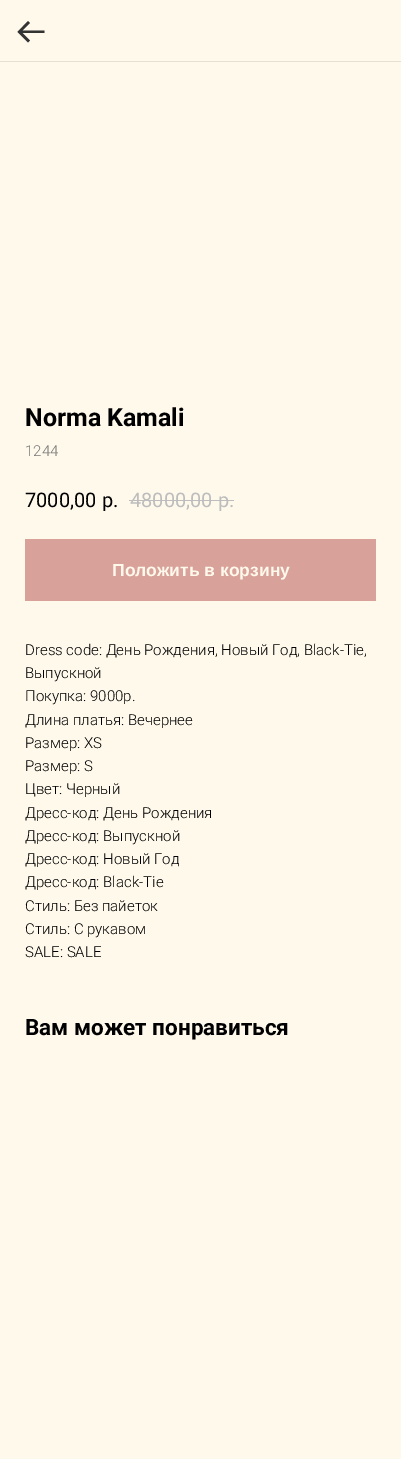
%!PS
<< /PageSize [401 1459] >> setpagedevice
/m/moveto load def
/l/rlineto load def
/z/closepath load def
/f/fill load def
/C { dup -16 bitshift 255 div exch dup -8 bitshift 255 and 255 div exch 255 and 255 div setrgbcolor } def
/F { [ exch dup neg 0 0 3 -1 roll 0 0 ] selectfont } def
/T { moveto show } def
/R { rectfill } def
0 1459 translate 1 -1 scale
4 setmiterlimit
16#FFF9EC C
0 0 401 1459 R
16#E6E0D4 C
0 61 401 1 R
16#333333 C
28 21 m 2 2 l -7.5 7.5 l 22 0 l 0 2.5 l -22 0 l 7.5 7.5 l -2 2 l -10.5 -10.5 l z f
/Roboto-Bold 25 F
16#000000 C
(Norma Kamali) 25 426 T
/Roboto-Light 15 F
16#777777 C
(1244) 25 456 T
/Roboto-Regular 20 F
16#000000 C
(7000,00) 25 507 T
(р.) 102 507 T
16#BDBDBD C
(48000,00) 130 507 T
(р.) 218 507 T
129 500 105 1 R
16#D8A29A C
25 539 351 62 R
/LiberationSans-Bold 17.5 F
16#FFF9EC C
(Положить в корзину) 112 576 T
/Roboto-Light 15 F
16#000000 C
(Dress code: День Рождения, Новый Год, Black-Tie,) 25 655 T
(Выпускной) 25 678 T
(Покупка: 9000р.) 25 701 T
(Длина платья: Вечернее) 25 725 T
(Размер: XS) 25 748 T
(Размер: S) 25 771 T
(Цвет: Черный) 25 794 T
(Дресс-код: День Рождения) 25 818 T
(Дресс-код: Выпускной) 25 841 T
(Дресс-код: Новый Год) 25 864 T
(Дресс-код: Black-Tie) 25 887 T
(Стиль: Без пайеток) 25 911 T
(Стиль: С рукавом) 25 934 T
(SALE: SALE) 25 957 T
/Roboto-Bold 22.5 F
(Вам может понравиться) 25 1035 T
showpage
